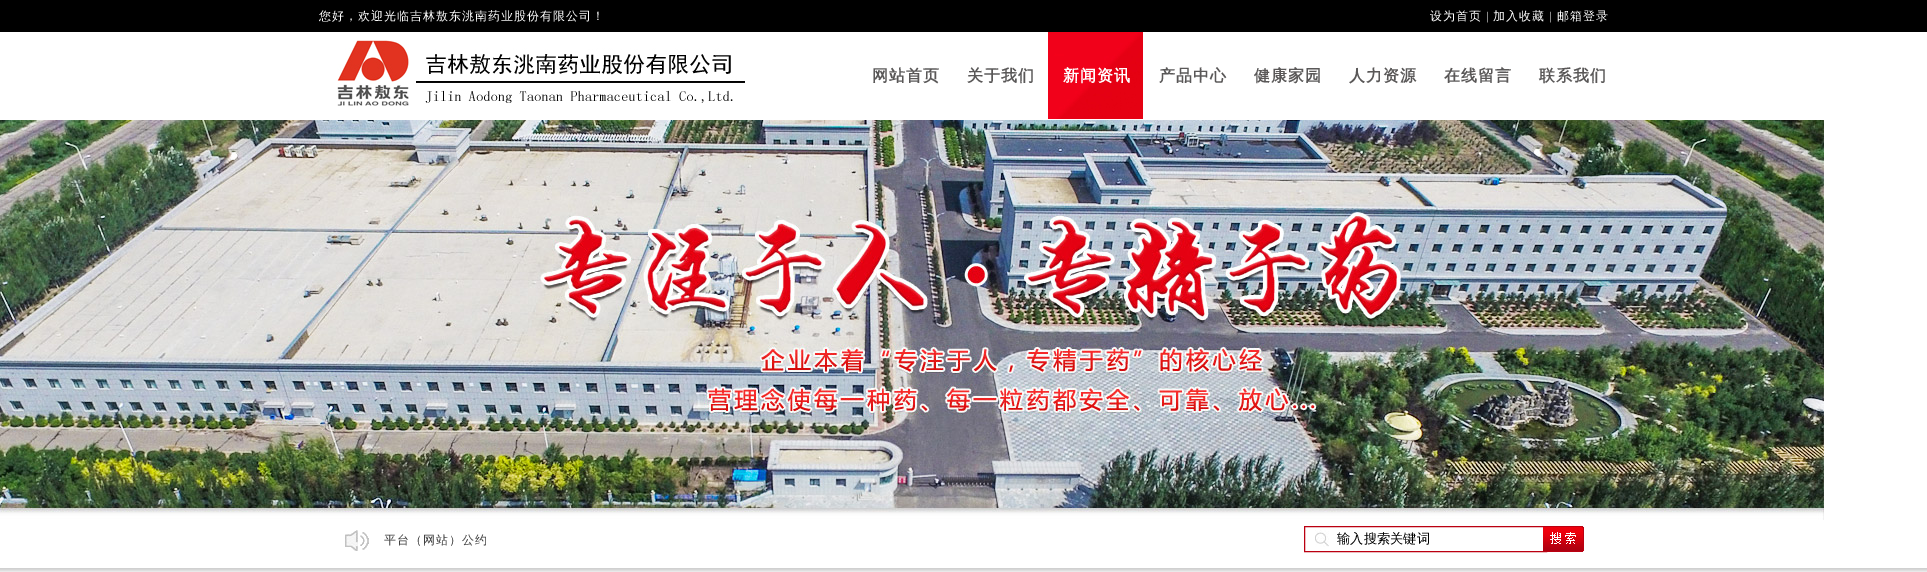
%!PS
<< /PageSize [1927 572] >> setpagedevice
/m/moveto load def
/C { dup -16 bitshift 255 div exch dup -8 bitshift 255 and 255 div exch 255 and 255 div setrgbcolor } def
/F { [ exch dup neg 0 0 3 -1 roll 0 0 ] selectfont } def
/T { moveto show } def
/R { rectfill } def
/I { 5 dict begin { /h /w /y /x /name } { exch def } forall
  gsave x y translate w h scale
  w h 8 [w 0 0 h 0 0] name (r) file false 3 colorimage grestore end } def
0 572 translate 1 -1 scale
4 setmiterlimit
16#FFFFFF C
0 0 1927 572 R
16#000000 C
0 0 1927 32 R
/WenQuanYiZenHei-Medium 12 F
16#FFFFFF C
319 20 m 1 0 (您好，欢迎光临吉林敖东洮南药业股份有限公司！) ashow
1430 20 m 1 0 (设为首页) ashow
/LiberationSerif-Regular 12 F
1486 20 m 1 0 (|) ashow
/WenQuanYiZenHei-Medium 12 F
1493 20 m 1 0 (加入收藏) ashow
/LiberationSerif-Regular 12 F
1549 20 m 1 0 (|) ashow
/WenQuanYiZenHei-Medium 12 F
1557 20 m 1 0 (邮箱登录) ashow
(1.rgb) 337 40 408 66 I
/WenQuanYiZenHei-Bold 16 F
16#5A5858 C
872 81 m 1 0 (网站首页) ashow
967 81 m 1 0 (关于我们) ashow
(2.rgb) 1048 32 95 87 I
16#FFFFFF C
1063 81 m 1 0 (新闻资讯) ashow
16#5A5858 C
1159 81 m 1 0 (产品中心) ashow
1254 81 m 1 0 (健康家园) ashow
1349 81 m 1 0 (人力资源) ashow
1444 81 m 1 0 (在线留言) ashow
1539 81 m 1 0 (联系我们) ashow
(3.rgb) 0 120 1824 400 I
(4.rgb) 0 568 1927 4 I
(5.rgb) 345 530 24 21 I
/WenQuanYiZenHei-Medium 12 F
16#404040 C
384 544 m 1 0 (平台（网站）公约) ashow
(6.rgb) 1315 530 14 17 I
16#BB0011 C
1304.5 526.5 242 25 rectstroke
/WenQuanYiZenHei-Medium 13.25 F
16#000000 C
(输入搜索关键词) 1337 543 T
(7.rgb) 1543 526 41 26 I
showpage
